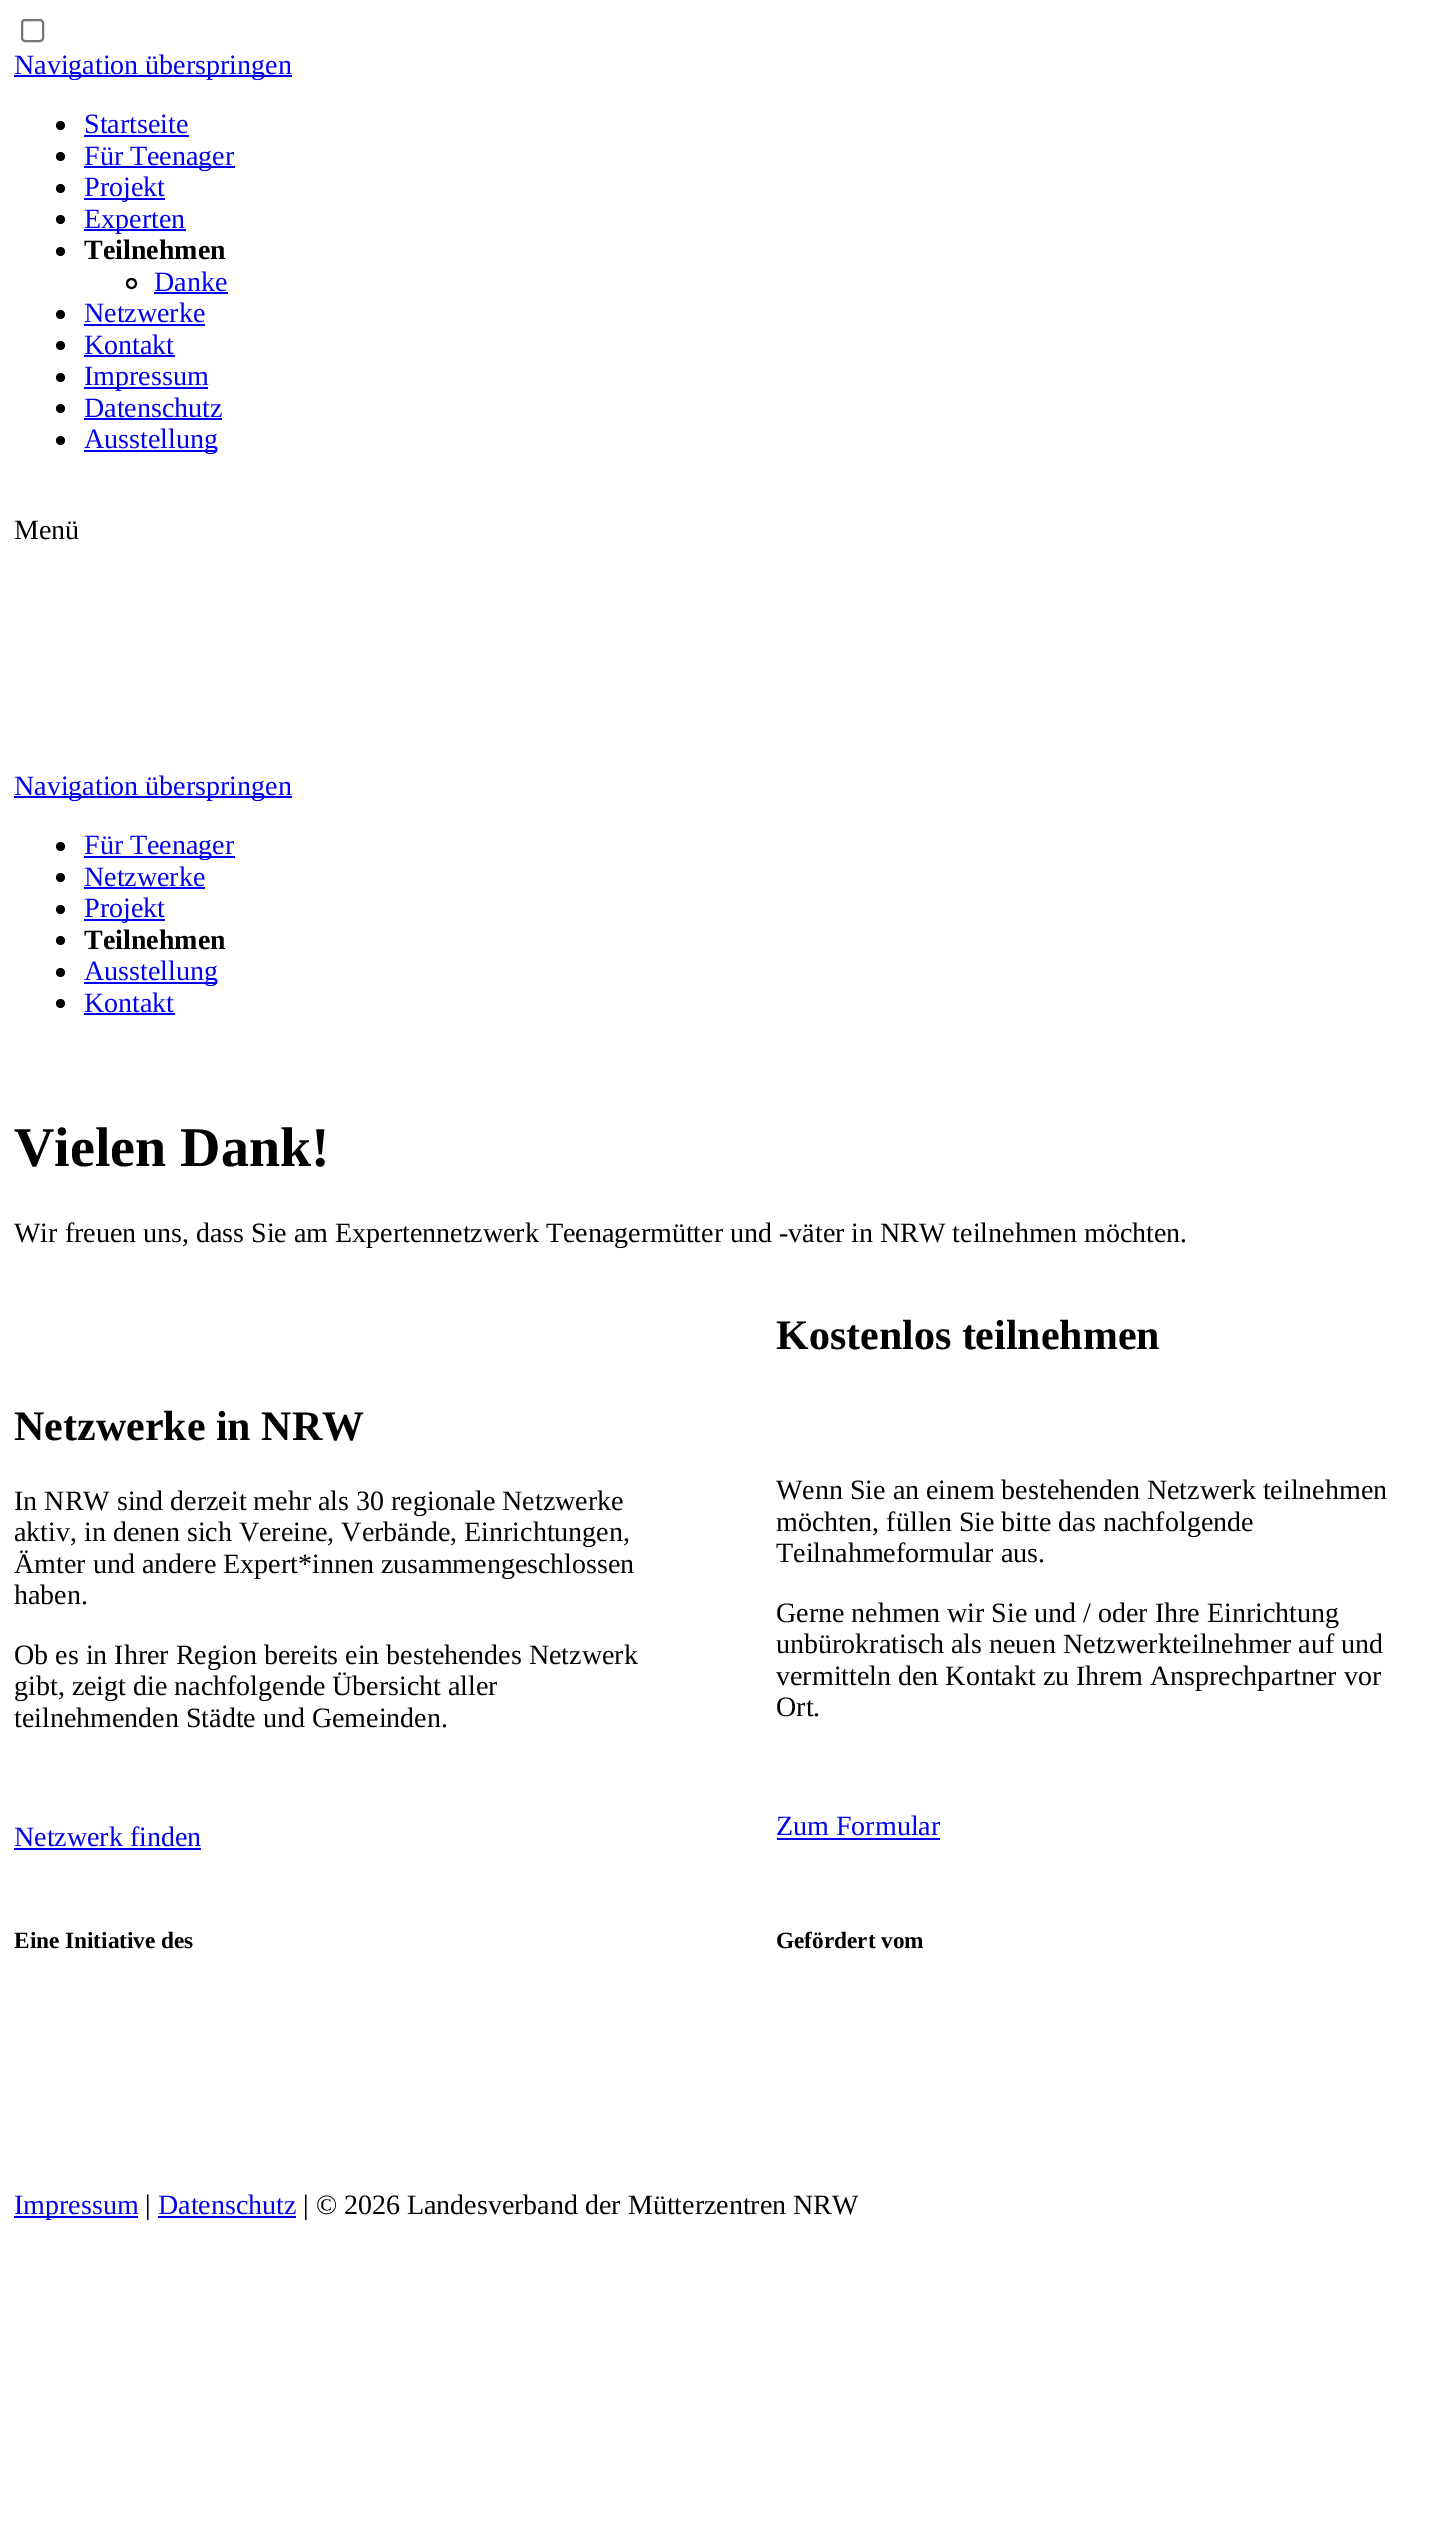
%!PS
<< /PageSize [1443 2546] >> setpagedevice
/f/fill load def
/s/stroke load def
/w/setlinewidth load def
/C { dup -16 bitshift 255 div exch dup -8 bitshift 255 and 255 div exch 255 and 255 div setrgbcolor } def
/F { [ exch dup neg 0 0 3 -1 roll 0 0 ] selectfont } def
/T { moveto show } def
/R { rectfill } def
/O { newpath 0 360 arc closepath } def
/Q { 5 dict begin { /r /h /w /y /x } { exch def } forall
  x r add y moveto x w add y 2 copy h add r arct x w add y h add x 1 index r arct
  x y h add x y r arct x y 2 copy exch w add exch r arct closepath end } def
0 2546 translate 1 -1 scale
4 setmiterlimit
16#FFFFFF C
0 0 1443 2546 R
16#767676 C
2 w
22 20 21 21 3 Q s
16#0000EE C
14 75 278 2 R
/LiberationSerif-Regular 28 F
(Navigation überspringen) 14 74 T
16#000000 C
60.5 125.5 4.5 O f
16#0000EE C
(Startseite) 84 133 T
84 135 105 2 R
16#000000 C
60.5 156.5 4.5 O f
16#0000EE C
84 166 151 2 R
(Für Teenager) 84 165 T
16#000000 C
60.5 188.5 4.5 O f
16#0000EE C
84 198 81 2 R
(Projekt) 84 196 T
16#000000 C
60.5 219.5 4.5 O f
16#0000EE C
84 229 102 2 R
(Experten) 84 228 T
16#000000 C
60.5 251.5 4.5 O f
/LiberationSerif-Bold 28 F
(Teilnehmen) 84 259 T
131.5 283.5 4.5 O s
/LiberationSerif-Regular 28 F
16#0000EE C
(Danke) 154 291 T
154 292 74 2 R
16#000000 C
60.5 314.5 4.5 O f
16#0000EE C
(Netzwerke) 84 322 T
84 324 121 2 R
16#000000 C
60.5 345.5 4.5 O f
16#0000EE C
(Kontakt) 84 354 T
84 355 91 2 R
16#000000 C
60.5 377.5 4.5 O f
16#0000EE C
84 387 124 2 R
(Impressum) 84 385 T
16#000000 C
60.5 408.5 4.5 O f
16#0000EE C
(Datenschutz) 84 417 T
84 418 138 2 R
16#000000 C
60.5 440.5 4.5 O f
16#0000EE C
84 450 133 2 R
(Ausstellung) 84 448 T
16#000000 C
(Menü) 14 539 T
16#0000EE C
14 796 278 2 R
(Navigation überspringen) 14 795 T
16#000000 C
60.5 846.5 4.5 O f
16#0000EE C
84 856 151 2 R
(Für Teenager) 84 854 T
16#000000 C
60.5 877.5 4.5 O f
16#0000EE C
(Netzwerke) 84 886 T
84 887 121 2 R
16#000000 C
60.5 909.5 4.5 O f
16#0000EE C
84 919 81 2 R
(Projekt) 84 917 T
16#000000 C
60.5 940.5 4.5 O f
/LiberationSerif-Bold 28 F
(Teilnehmen) 84 949 T
60.5 972.5 4.5 O f
16#0000EE C
84 982 133 2 R
/LiberationSerif-Regular 28 F
(Ausstellung) 84 980 T
16#000000 C
60.5 1003.5 4.5 O f
16#0000EE C
(Kontakt) 84 1012 T
84 1013 91 2 R
/LiberationSerif-Bold 56 F
16#000000 C
(Vielen Dank!) 14 1166 T
/LiberationSerif-Regular 28 F
(Wir freuen uns, dass Sie am Expertennetzwerk Teenagermütter und -väter in NRW teilnehmen möchten.) 14 1242 T
/LiberationSerif-Bold 42 F
(Netzwerke in NRW) 14 1440 T
/LiberationSerif-Regular 28 F
(In NRW sind derzeit mehr als 30 regionale Netzwerke) 14 1510 T
(aktiv, in denen sich Vereine, Verbände, Einrichtungen,) 14 1541 T
(Ämter und andere Expert*innen zusammengeschlossen) 14 1573 T
(haben.) 14 1604 T
(Ob es in Ihrer Region bereits ein bestehendes Netzwerk) 14 1664 T
(gibt, zeigt die nachfolgende Übersicht aller) 14 1695 T
(teilnehmenden Städte und Gemeinden.) 14 1727 T
16#0000EE C
(Netzwerk finden) 14 1846 T
14 1848 187 2 R
/LiberationSerif-Bold 42 F
16#000000 C
(Kostenlos teilnehmen) 776 1349 T
/LiberationSerif-Regular 28 F
(Wenn Sie an einem bestehenden Netzwerk teilnehmen) 776 1499 T
(möchten, füllen Sie bitte das nachfolgende) 776 1531 T
(Teilnahmeformular aus.) 776 1562 T
(Gerne nehmen wir Sie und / oder Ihre Einrichtung) 776 1622 T
(unbürokratisch als neuen Netzwerkteilnehmer auf und) 776 1653 T
(vermitteln den Kontakt zu Ihrem Ansprechpartner vor) 776 1685 T
(Ort.) 776 1716 T
16#0000EE C
(Zum Formular) 776 1835 T
777 1838 163 2 R
/LiberationSerif-Bold 23.25 F
16#000000 C
(Eine Initiative des) 14 1948 T
(Gefördert vom) 776 1948 T
16#0000EE C
14 2216 124 2 R
/LiberationSerif-Regular 28 F
(Impressum) 14 2214 T
16#000000 C
(|) 145 2214 T
16#0000EE C
(Datenschutz) 158 2214 T
158 2216 138 2 R
16#000000 C
(| © 2026 Landesverband der Mütterzentren NRW) 303 2214 T
showpage
